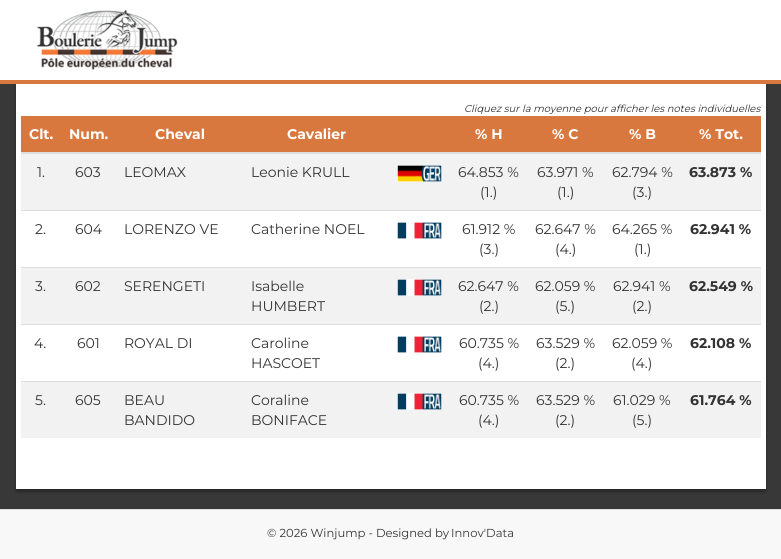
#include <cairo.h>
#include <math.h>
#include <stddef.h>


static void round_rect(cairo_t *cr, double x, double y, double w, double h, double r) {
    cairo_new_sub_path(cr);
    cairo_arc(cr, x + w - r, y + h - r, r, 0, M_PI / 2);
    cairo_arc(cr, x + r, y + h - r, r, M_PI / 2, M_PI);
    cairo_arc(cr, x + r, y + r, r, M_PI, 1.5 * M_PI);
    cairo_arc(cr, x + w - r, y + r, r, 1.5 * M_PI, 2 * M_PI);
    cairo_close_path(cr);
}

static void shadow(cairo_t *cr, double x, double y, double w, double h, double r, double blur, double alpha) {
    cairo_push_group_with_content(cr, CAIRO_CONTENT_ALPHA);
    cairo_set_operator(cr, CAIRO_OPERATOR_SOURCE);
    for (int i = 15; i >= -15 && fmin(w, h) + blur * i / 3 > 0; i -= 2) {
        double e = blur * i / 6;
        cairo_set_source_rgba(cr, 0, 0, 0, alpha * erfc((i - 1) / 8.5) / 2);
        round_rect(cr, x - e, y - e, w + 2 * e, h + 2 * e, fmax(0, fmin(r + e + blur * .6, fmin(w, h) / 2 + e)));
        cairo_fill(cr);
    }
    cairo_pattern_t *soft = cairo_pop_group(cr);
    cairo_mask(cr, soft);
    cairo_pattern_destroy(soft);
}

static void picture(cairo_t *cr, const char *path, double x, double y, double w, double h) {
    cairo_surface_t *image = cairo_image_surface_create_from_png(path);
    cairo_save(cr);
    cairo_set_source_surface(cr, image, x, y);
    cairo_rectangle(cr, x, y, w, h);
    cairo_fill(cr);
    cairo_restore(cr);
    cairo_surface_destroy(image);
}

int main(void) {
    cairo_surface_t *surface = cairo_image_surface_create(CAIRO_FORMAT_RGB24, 781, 559);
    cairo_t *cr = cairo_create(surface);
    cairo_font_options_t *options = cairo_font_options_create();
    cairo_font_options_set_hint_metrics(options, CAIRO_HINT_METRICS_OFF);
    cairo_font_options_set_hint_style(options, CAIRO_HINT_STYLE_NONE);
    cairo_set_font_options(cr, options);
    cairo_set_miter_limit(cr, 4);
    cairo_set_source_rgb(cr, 0.224, 0.22, 0.22);
    cairo_paint(cr);
    cairo_set_source_rgb(cr, 0, 0, 0);
    shadow(cr, 16, -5, 750, 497, 0, 1.5, 0.3);
    cairo_set_source_rgb(cr, 1, 1, 1);
    cairo_rectangle(cr, 0, 0, 781, 80);
    cairo_fill(cr);
    cairo_set_source_rgb(cr, 0.851, 0.471, 0.243);
    cairo_rectangle(cr, 0, 80, 781, 4);
    cairo_fill(cr);
    picture(cr, "img1.png", 36, 10, 142, 60);
    cairo_set_source_rgb(cr, 1, 1, 1);
    cairo_rectangle(cr, 16, 84, 750, 405);
    cairo_fill(cr);
    cairo_select_font_face(cr, "Montserrat", CAIRO_FONT_SLANT_ITALIC, CAIRO_FONT_WEIGHT_NORMAL);
    cairo_set_font_size(cr, 10);
    cairo_set_source_rgb(cr, 0.2, 0.2, 0.2);
    cairo_move_to(cr, 464, 112);
    cairo_show_text(cr, "Cliquez sur la moyenne pour afficher les notes individuelles");
    cairo_set_source_rgb(cr, 0.851, 0.471, 0.243);
    cairo_rectangle(cr, 21, 116, 740, 36);
    cairo_fill(cr);
    cairo_select_font_face(cr, "Montserrat", CAIRO_FONT_SLANT_NORMAL, CAIRO_FONT_WEIGHT_BOLD);
    cairo_set_font_size(cr, 14);
    cairo_set_source_rgb(cr, 1, 1, 1);
    cairo_move_to(cr, 29, 139);
    cairo_show_text(cr, "Clt.");
    cairo_move_to(cr, 69, 139);
    cairo_show_text(cr, "Num.");
    cairo_move_to(cr, 155, 139);
    cairo_show_text(cr, "Cheval");
    cairo_move_to(cr, 287, 139);
    cairo_show_text(cr, "Cavalier");
    cairo_move_to(cr, 475, 139);
    cairo_show_text(cr, "% H");
    cairo_move_to(cr, 552, 139);
    cairo_show_text(cr, "% C");
    cairo_move_to(cr, 629, 139);
    cairo_show_text(cr, "% B");
    cairo_set_source_rgb(cr, 0.867, 0.867, 0.867);
    cairo_rectangle(cr, 21, 152, 740, 2);
    cairo_fill(cr);
    cairo_set_source_rgb(cr, 1, 1, 1);
    cairo_move_to(cr, 699, 139);
    cairo_show_text(cr, "% Tot.");
    cairo_set_source_rgb(cr, 0.949, 0.949, 0.949);
    cairo_rectangle(cr, 21, 154, 740, 56);
    cairo_fill(cr);
    cairo_select_font_face(cr, "Montserrat", CAIRO_FONT_SLANT_NORMAL, CAIRO_FONT_WEIGHT_NORMAL);
    cairo_set_source_rgb(cr, 0.2, 0.2, 0.2);
    cairo_move_to(cr, 37, 177);
    cairo_show_text(cr, "1.");
    cairo_move_to(cr, 75, 177);
    cairo_show_text(cr, "603");
    cairo_move_to(cr, 124, 177);
    cairo_show_text(cr, "LEOMAX");
    cairo_move_to(cr, 251, 177);
    cairo_show_text(cr, "Leonie KRULL");
    picture(cr, "img2.png", 397, 165, 45, 17);
    cairo_move_to(cr, 458, 177);
    cairo_show_text(cr, "64.853 %");
    cairo_move_to(cr, 480, 197);
    cairo_show_text(cr, "(1.)");
    cairo_move_to(cr, 537, 177);
    cairo_show_text(cr, "63.971 %");
    cairo_move_to(cr, 557, 197);
    cairo_show_text(cr, "(1.)");
    cairo_move_to(cr, 612, 177);
    cairo_show_text(cr, "62.794 %");
    cairo_move_to(cr, 632, 197);
    cairo_show_text(cr, "(3.)");
    cairo_select_font_face(cr, "Montserrat", CAIRO_FONT_SLANT_NORMAL, CAIRO_FONT_WEIGHT_BOLD);
    cairo_move_to(cr, 689, 177);
    cairo_show_text(cr, "63.873 %");
    cairo_select_font_face(cr, "Montserrat", CAIRO_FONT_SLANT_NORMAL, CAIRO_FONT_WEIGHT_NORMAL);
    cairo_move_to(cr, 35, 234);
    cairo_show_text(cr, "2.");
    cairo_move_to(cr, 75, 234);
    cairo_show_text(cr, "604");
    cairo_move_to(cr, 124, 234);
    cairo_show_text(cr, "LORENZO VE");
    cairo_move_to(cr, 251, 234);
    cairo_show_text(cr, "Catherine NOEL");
    picture(cr, "img3.png", 397, 222, 45, 17);
    cairo_move_to(cr, 462, 234);
    cairo_show_text(cr, "61.912 %");
    cairo_move_to(cr, 479, 254);
    cairo_show_text(cr, "(3.)");
    cairo_move_to(cr, 535, 234);
    cairo_show_text(cr, "62.647 %");
    cairo_move_to(cr, 555, 254);
    cairo_show_text(cr, "(4.)");
    cairo_move_to(cr, 612, 234);
    cairo_show_text(cr, "64.265 %");
    cairo_move_to(cr, 634, 254);
    cairo_show_text(cr, "(1.)");
    cairo_set_source_rgb(cr, 0.867, 0.867, 0.867);
    cairo_rectangle(cr, 21, 210, 740, 1);
    cairo_fill(cr);
    cairo_select_font_face(cr, "Montserrat", CAIRO_FONT_SLANT_NORMAL, CAIRO_FONT_WEIGHT_BOLD);
    cairo_set_source_rgb(cr, 0.2, 0.2, 0.2);
    cairo_move_to(cr, 690, 234);
    cairo_show_text(cr, "62.941 %");
    cairo_set_source_rgb(cr, 0.949, 0.949, 0.949);
    cairo_rectangle(cr, 21, 268, 740, 56);
    cairo_fill(cr);
    cairo_select_font_face(cr, "Montserrat", CAIRO_FONT_SLANT_NORMAL, CAIRO_FONT_WEIGHT_NORMAL);
    cairo_set_source_rgb(cr, 0.2, 0.2, 0.2);
    cairo_move_to(cr, 35, 291);
    cairo_show_text(cr, "3.");
    cairo_move_to(cr, 75, 291);
    cairo_show_text(cr, "602");
    cairo_move_to(cr, 124, 291);
    cairo_show_text(cr, "SERENGETI");
    cairo_move_to(cr, 251, 291);
    cairo_show_text(cr, "Isabelle");
    cairo_move_to(cr, 251, 311);
    cairo_show_text(cr, "HUMBERT");
    picture(cr, "img3.png", 397, 279, 45, 17);
    cairo_move_to(cr, 458, 291);
    cairo_show_text(cr, "62.647 %");
    cairo_move_to(cr, 479, 311);
    cairo_show_text(cr, "(2.)");
    cairo_move_to(cr, 535, 291);
    cairo_show_text(cr, "62.059 %");
    cairo_move_to(cr, 555, 311);
    cairo_show_text(cr, "(5.)");
    cairo_move_to(cr, 613, 291);
    cairo_show_text(cr, "62.941 %");
    cairo_move_to(cr, 632, 311);
    cairo_show_text(cr, "(2.)");
    cairo_set_source_rgb(cr, 0.867, 0.867, 0.867);
    cairo_rectangle(cr, 21, 267, 740, 1);
    cairo_fill(cr);
    cairo_select_font_face(cr, "Montserrat", CAIRO_FONT_SLANT_NORMAL, CAIRO_FONT_WEIGHT_BOLD);
    cairo_set_source_rgb(cr, 0.2, 0.2, 0.2);
    cairo_move_to(cr, 689, 291);
    cairo_show_text(cr, "62.549 %");
    cairo_select_font_face(cr, "Montserrat", CAIRO_FONT_SLANT_NORMAL, CAIRO_FONT_WEIGHT_NORMAL);
    cairo_move_to(cr, 34, 348);
    cairo_show_text(cr, "4.");
    cairo_move_to(cr, 77, 348);
    cairo_show_text(cr, "601");
    cairo_move_to(cr, 124, 348);
    cairo_show_text(cr, "ROYAL DI");
    cairo_move_to(cr, 251, 348);
    cairo_show_text(cr, "Caroline");
    cairo_move_to(cr, 251, 368);
    cairo_show_text(cr, "HASCOET");
    picture(cr, "img3.png", 397, 336, 45, 17);
    cairo_move_to(cr, 459, 348);
    cairo_show_text(cr, "60.735 %");
    cairo_move_to(cr, 478, 368);
    cairo_show_text(cr, "(4.)");
    cairo_move_to(cr, 536, 348);
    cairo_show_text(cr, "63.529 %");
    cairo_move_to(cr, 555, 368);
    cairo_show_text(cr, "(2.)");
    cairo_move_to(cr, 612, 348);
    cairo_show_text(cr, "62.059 %");
    cairo_move_to(cr, 631, 368);
    cairo_show_text(cr, "(4.)");
    cairo_set_source_rgb(cr, 0.867, 0.867, 0.867);
    cairo_rectangle(cr, 21, 324, 740, 1);
    cairo_fill(cr);
    cairo_select_font_face(cr, "Montserrat", CAIRO_FONT_SLANT_NORMAL, CAIRO_FONT_WEIGHT_BOLD);
    cairo_set_source_rgb(cr, 0.2, 0.2, 0.2);
    cairo_move_to(cr, 690, 348);
    cairo_show_text(cr, "62.108 %");
    cairo_set_source_rgb(cr, 0.949, 0.949, 0.949);
    cairo_rectangle(cr, 21, 382, 740, 56);
    cairo_fill(cr);
    cairo_select_font_face(cr, "Montserrat", CAIRO_FONT_SLANT_NORMAL, CAIRO_FONT_WEIGHT_NORMAL);
    cairo_set_source_rgb(cr, 0.2, 0.2, 0.2);
    cairo_move_to(cr, 35, 405);
    cairo_show_text(cr, "5.");
    cairo_move_to(cr, 75, 405);
    cairo_show_text(cr, "605");
    cairo_move_to(cr, 124, 405);
    cairo_show_text(cr, "BEAU");
    cairo_move_to(cr, 124, 425);
    cairo_show_text(cr, "BANDIDO");
    cairo_move_to(cr, 251, 405);
    cairo_show_text(cr, "Coraline");
    cairo_move_to(cr, 251, 425);
    cairo_show_text(cr, "BONIFACE");
    picture(cr, "img3.png", 397, 393, 45, 17);
    cairo_move_to(cr, 459, 405);
    cairo_show_text(cr, "60.735 %");
    cairo_move_to(cr, 478, 425);
    cairo_show_text(cr, "(4.)");
    cairo_move_to(cr, 536, 405);
    cairo_show_text(cr, "63.529 %");
    cairo_move_to(cr, 555, 425);
    cairo_show_text(cr, "(2.)");
    cairo_move_to(cr, 613, 405);
    cairo_show_text(cr, "61.029 %");
    cairo_move_to(cr, 632, 425);
    cairo_show_text(cr, "(5.)");
    cairo_set_source_rgb(cr, 0.867, 0.867, 0.867);
    cairo_rectangle(cr, 21, 381, 740, 1);
    cairo_fill(cr);
    cairo_select_font_face(cr, "Montserrat", CAIRO_FONT_SLANT_NORMAL, CAIRO_FONT_WEIGHT_BOLD);
    cairo_set_source_rgb(cr, 0.2, 0.2, 0.2);
    cairo_move_to(cr, 690, 405);
    cairo_show_text(cr, "61.764 %");
    cairo_set_source_rgb(cr, 0.969, 0.969, 0.969);
    cairo_rectangle(cr, 0, 510, 781, 49);
    cairo_fill(cr);
    cairo_set_source_rgb(cr, 0.875, 0.875, 0.875);
    cairo_rectangle(cr, 0, 509, 781, 1);
    cairo_fill(cr);
    cairo_select_font_face(cr, "Montserrat", CAIRO_FONT_SLANT_NORMAL, CAIRO_FONT_WEIGHT_NORMAL);
    cairo_set_font_size(cr, 11.6);
    cairo_set_source_rgb(cr, 0.2, 0.2, 0.2);
    cairo_move_to(cr, 267, 537);
    cairo_show_text(cr, "© 2026 Winjump - Designed by");
    cairo_set_source_rgb(cr, 0.224, 0.22, 0.22);
    cairo_move_to(cr, 451, 537);
    cairo_show_text(cr, "Innov'Data");
    cairo_surface_write_to_png(surface, "page.png");
    cairo_font_options_destroy(options);
    cairo_destroy(cr);
    cairo_surface_destroy(surface);
    return 0;
}
